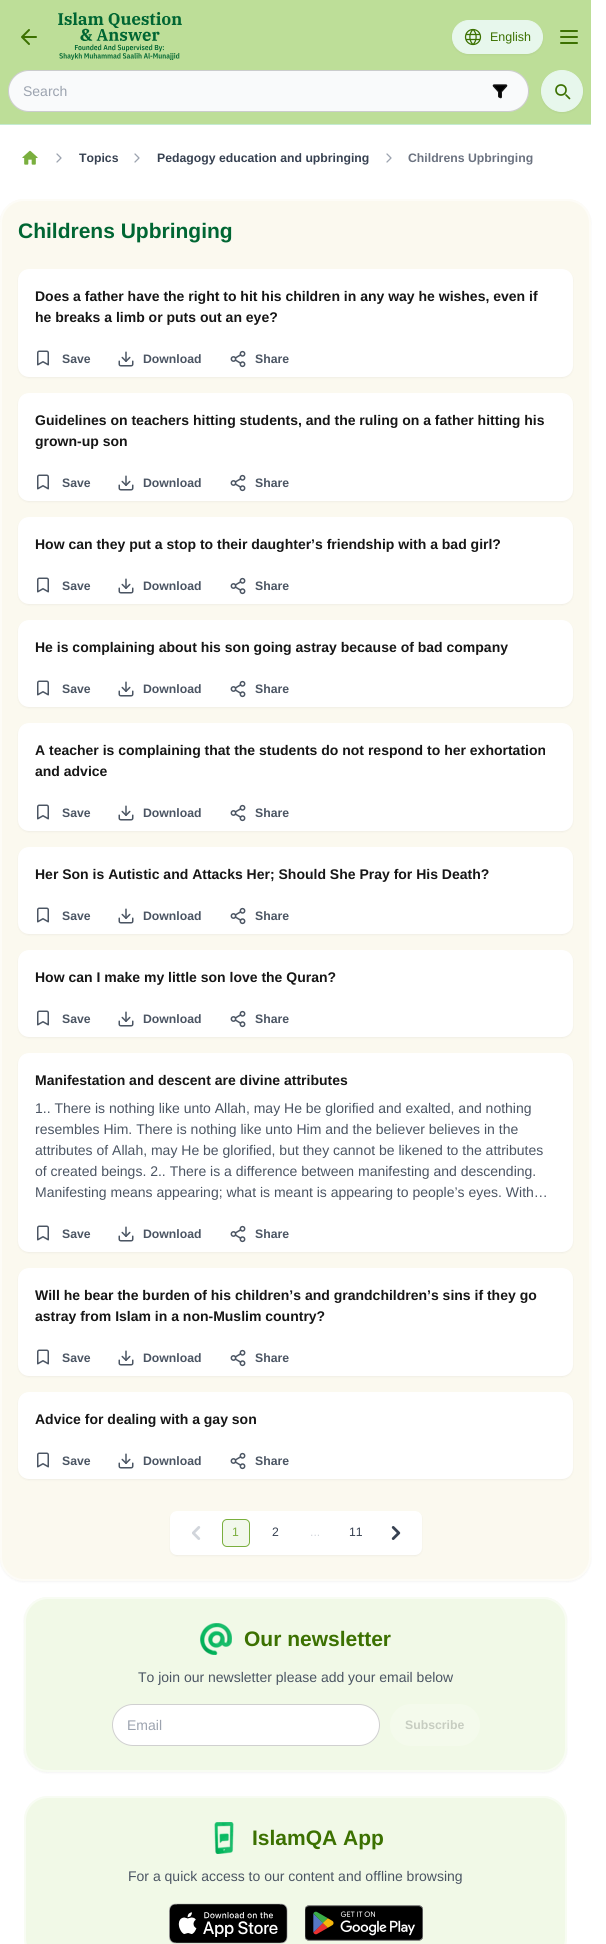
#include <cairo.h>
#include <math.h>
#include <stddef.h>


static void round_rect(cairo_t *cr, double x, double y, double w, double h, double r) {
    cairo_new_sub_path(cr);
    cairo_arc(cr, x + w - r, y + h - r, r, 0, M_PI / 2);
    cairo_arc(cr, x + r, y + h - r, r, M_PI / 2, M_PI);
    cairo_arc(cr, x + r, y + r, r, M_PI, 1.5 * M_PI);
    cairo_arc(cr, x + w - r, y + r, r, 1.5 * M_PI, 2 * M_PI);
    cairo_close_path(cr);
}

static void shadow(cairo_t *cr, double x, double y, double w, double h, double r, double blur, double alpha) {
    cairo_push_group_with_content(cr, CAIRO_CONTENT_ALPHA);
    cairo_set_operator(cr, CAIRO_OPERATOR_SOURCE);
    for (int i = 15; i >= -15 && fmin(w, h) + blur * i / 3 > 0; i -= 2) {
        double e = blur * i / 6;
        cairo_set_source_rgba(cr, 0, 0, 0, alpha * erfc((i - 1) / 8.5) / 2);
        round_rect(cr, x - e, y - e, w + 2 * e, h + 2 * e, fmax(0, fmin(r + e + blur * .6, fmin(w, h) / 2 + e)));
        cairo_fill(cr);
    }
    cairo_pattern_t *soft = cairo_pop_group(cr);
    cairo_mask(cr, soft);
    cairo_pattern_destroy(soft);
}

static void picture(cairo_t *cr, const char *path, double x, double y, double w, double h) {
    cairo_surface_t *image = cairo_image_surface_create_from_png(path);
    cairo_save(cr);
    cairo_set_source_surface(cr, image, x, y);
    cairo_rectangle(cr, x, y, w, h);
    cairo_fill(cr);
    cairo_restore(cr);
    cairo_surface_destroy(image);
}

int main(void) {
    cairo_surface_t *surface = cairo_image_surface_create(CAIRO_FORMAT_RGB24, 606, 1944);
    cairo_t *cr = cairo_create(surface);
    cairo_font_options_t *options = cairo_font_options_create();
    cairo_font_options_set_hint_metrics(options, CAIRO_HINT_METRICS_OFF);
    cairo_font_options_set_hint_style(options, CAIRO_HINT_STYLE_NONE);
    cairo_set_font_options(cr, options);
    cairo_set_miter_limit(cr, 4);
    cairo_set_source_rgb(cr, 1, 1, 1);
    cairo_paint(cr);
    cairo_set_source_rgb(cr, 0.741, 0.871, 0.596);
    cairo_rectangle(cr, 0, 0, 591, 124);
    cairo_fill(cr);
    cairo_set_source_rgb(cr, 0.769, 0.918, 0.82);
    cairo_rectangle(cr, 0, 124, 591, 1);
    cairo_fill(cr);
    cairo_new_path(cr);
    cairo_move_to(cr, 29, 44);
    cairo_line_to(cr, 22, 37);
    cairo_line_to(cr, 29, 30);
    cairo_move_to(cr, 36, 37);
    cairo_line_to(cr, 22, 37);
    cairo_set_source_rgb(cr, 0.235, 0.443, 0.004);
    cairo_set_line_cap(cr, CAIRO_LINE_CAP_ROUND);
    cairo_set_line_join(cr, CAIRO_LINE_JOIN_ROUND);
    cairo_stroke(cr);
    picture(cr, "img1.png", 58, 12, 124, 48);
    cairo_set_source_rgb(cr, 0, 0, 0);
    shadow(cr, 452, 21, 91, 34, 17, 1, 0.05);
    cairo_set_source_rgb(cr, 0.906, 0.965, 0.925);
    round_rect(cr, 452.5, 20.5, 90, 33, 16.5);
    cairo_fill_preserve(cr);
    cairo_set_line_width(cr, 1);
    cairo_set_line_cap(cr, CAIRO_LINE_CAP_BUTT);
    cairo_set_line_join(cr, CAIRO_LINE_JOIN_MITER);
    cairo_stroke(cr);
    picture(cr, "img2.png", 464, 28, 18, 18);
    cairo_select_font_face(cr, "Liberation Sans", CAIRO_FONT_SLANT_NORMAL, CAIRO_FONT_WEIGHT_NORMAL);
    cairo_set_font_size(cr, 12.5);
    cairo_set_source_rgb(cr, 0.235, 0.443, 0.004);
    cairo_move_to(cr, 490, 41);
    cairo_show_text(cr, "English");
    picture(cr, "img3.png", 560, 30, 18, 14);
    cairo_set_source_rgb(cr, 0.976, 0.98, 0.984);
    round_rect(cr, 8, 70, 521, 42, 21);
    cairo_fill(cr);
    round_rect(cr, 8.5, 70.5, 520, 41, 20.5);
    cairo_set_source_rgba(cr, 0.086, 0.086, 0.086, 0.2);
    cairo_stroke(cr);
    cairo_set_font_size(cr, 14);
    cairo_set_source_rgb(cr, 0.612, 0.639, 0.686);
    cairo_move_to(cr, 23, 96);
    cairo_show_text(cr, "Search");
    picture(cr, "img4.png", 492, 84, 16, 15);
    cairo_set_source_rgb(cr, 0, 0, 0);
    shadow(cr, 541, 71, 42, 42, 21, 1, 0.05);
    cairo_set_source_rgb(cr, 0.906, 0.965, 0.925);
    cairo_arc(cr, 562, 91, 20.5, 0, 2 * M_PI);
    cairo_fill_preserve(cr);
    cairo_stroke(cr);
    cairo_new_path(cr);
    cairo_move_to(cr, 569.5, 98.5);
    cairo_line_to(cr, 566, 95);
    cairo_set_source_rgb(cr, 0.235, 0.443, 0.004);
    cairo_set_line_width(cr, 1.7);
    cairo_set_line_cap(cr, CAIRO_LINE_CAP_ROUND);
    cairo_set_line_join(cr, CAIRO_LINE_JOIN_ROUND);
    cairo_stroke(cr);
    cairo_arc(cr, 561, 90, 5, 0, 2 * M_PI);
    cairo_set_line_cap(cr, CAIRO_LINE_CAP_BUTT);
    cairo_set_line_join(cr, CAIRO_LINE_JOIN_MITER);
    cairo_stroke(cr);
    cairo_set_source_rgb(cr, 0, 0, 0);
    shadow(cr, 0, 200, 591, 1382, 24, 1, 0.05);
    cairo_set_source_rgb(cr, 0.984, 0.973, 0.937);
    round_rect(cr, 0, 199, 591, 1382, 24);
    cairo_fill(cr);
    round_rect(cr, 1, 200, 589, 1380, 23);
    cairo_set_source_rgba(cr, 1, 1, 1, 0.5);
    cairo_set_line_width(cr, 2);
    cairo_stroke(cr);
    picture(cr, "img5.png", 22, 150, 16, 15);
    cairo_new_path(cr);
    cairo_move_to(cr, 57, 162);
    cairo_line_to(cr, 61, 158);
    cairo_line_to(cr, 57, 154);
    cairo_set_source_rgb(cr, 0.612, 0.639, 0.686);
    cairo_set_line_width(cr, 1.3);
    cairo_set_line_cap(cr, CAIRO_LINE_CAP_ROUND);
    cairo_set_line_join(cr, CAIRO_LINE_JOIN_ROUND);
    cairo_stroke(cr);
    cairo_select_font_face(cr, "Liberation Sans", CAIRO_FONT_SLANT_NORMAL, CAIRO_FONT_WEIGHT_BOLD);
    cairo_set_font_size(cr, 12.25);
    cairo_set_source_rgb(cr, 0.216, 0.255, 0.318);
    cairo_move_to(cr, 79, 162);
    cairo_show_text(cr, "Topics");
    cairo_new_path(cr);
    cairo_move_to(cr, 135, 162);
    cairo_line_to(cr, 139, 158);
    cairo_line_to(cr, 135, 154);
    cairo_set_source_rgb(cr, 0.612, 0.639, 0.686);
    cairo_stroke(cr);
    cairo_set_source_rgb(cr, 0.216, 0.255, 0.318);
    cairo_move_to(cr, 157, 162);
    cairo_show_text(cr, "Pedagogy education and upbringing");
    cairo_new_path(cr);
    cairo_move_to(cr, 387, 162);
    cairo_line_to(cr, 391, 158);
    cairo_line_to(cr, 387, 154);
    cairo_set_source_rgb(cr, 0.612, 0.639, 0.686);
    cairo_stroke(cr);
    cairo_set_source_rgb(cr, 0.42, 0.447, 0.502);
    cairo_move_to(cr, 408, 162);
    cairo_show_text(cr, "Childrens Upbringing");
    cairo_set_font_size(cr, 21);
    cairo_set_source_rgb(cr, 0, 0.4, 0.2);
    cairo_move_to(cr, 18, 238);
    cairo_show_text(cr, "Childrens Upbringing");
    cairo_set_source_rgb(cr, 0, 0, 0);
    shadow(cr, 18, 270, 555, 108, 11, 1, 0.05);
    cairo_set_source_rgb(cr, 1, 1, 1);
    round_rect(cr, 18, 269, 555, 108, 11);
    cairo_fill(cr);
    cairo_set_font_size(cr, 14);
    cairo_set_source_rgb(cr, 0.086, 0.086, 0.086);
    cairo_move_to(cr, 35, 301);
    cairo_show_text(cr, "Does a father have the right to hit his children in any way he wishes, even if");
    cairo_move_to(cr, 35, 322);
    cairo_show_text(cr, "he breaks a limb or puts out an eye?");
    picture(cr, "img6.png", 37, 350, 12, 16);
    cairo_set_font_size(cr, 12.25);
    cairo_set_source_rgb(cr, 0.294, 0.333, 0.388);
    cairo_move_to(cr, 62, 363);
    cairo_show_text(cr, "Save");
    picture(cr, "img7.png", 118, 351, 16, 16);
    cairo_move_to(cr, 143, 363);
    cairo_show_text(cr, "Download");
    picture(cr, "img8.png", 230, 350, 16, 18);
    cairo_move_to(cr, 255, 363);
    cairo_show_text(cr, "Share");
    cairo_set_source_rgb(cr, 0, 0, 0);
    shadow(cr, 18, 394, 555, 108, 11, 1, 0.05);
    cairo_set_source_rgb(cr, 1, 1, 1);
    round_rect(cr, 18, 393, 555, 108, 11);
    cairo_fill(cr);
    cairo_set_font_size(cr, 14);
    cairo_set_source_rgb(cr, 0.086, 0.086, 0.086);
    cairo_move_to(cr, 35, 425);
    cairo_show_text(cr, "Guidelines on teachers hitting students, and the ruling on a father hitting his");
    cairo_move_to(cr, 35, 446);
    cairo_show_text(cr, "grown-up son");
    picture(cr, "img6.png", 37, 474, 12, 16);
    cairo_set_font_size(cr, 12.25);
    cairo_set_source_rgb(cr, 0.294, 0.333, 0.388);
    cairo_move_to(cr, 62, 487);
    cairo_show_text(cr, "Save");
    picture(cr, "img7.png", 118, 475, 16, 16);
    cairo_move_to(cr, 143, 487);
    cairo_show_text(cr, "Download");
    picture(cr, "img8.png", 230, 474, 16, 18);
    cairo_move_to(cr, 255, 487);
    cairo_show_text(cr, "Share");
    cairo_set_source_rgb(cr, 0, 0, 0);
    shadow(cr, 18, 518, 555, 87, 11, 1, 0.05);
    cairo_set_source_rgb(cr, 1, 1, 1);
    round_rect(cr, 18, 517, 555, 87, 11);
    cairo_fill(cr);
    cairo_set_font_size(cr, 14);
    cairo_set_source_rgb(cr, 0.086, 0.086, 0.086);
    cairo_move_to(cr, 35, 549);
    cairo_show_text(cr, "How can they put a stop to their daughter’s friendship with a bad girl?");
    picture(cr, "img6.png", 37, 577, 12, 16);
    cairo_set_font_size(cr, 12.25);
    cairo_set_source_rgb(cr, 0.294, 0.333, 0.388);
    cairo_move_to(cr, 62, 590);
    cairo_show_text(cr, "Save");
    picture(cr, "img7.png", 118, 578, 16, 16);
    cairo_move_to(cr, 143, 590);
    cairo_show_text(cr, "Download");
    picture(cr, "img8.png", 230, 577, 16, 18);
    cairo_move_to(cr, 255, 590);
    cairo_show_text(cr, "Share");
    cairo_set_source_rgb(cr, 0, 0, 0);
    shadow(cr, 18, 621, 555, 87, 11, 1, 0.05);
    cairo_set_source_rgb(cr, 1, 1, 1);
    round_rect(cr, 18, 620, 555, 87, 11);
    cairo_fill(cr);
    cairo_set_font_size(cr, 14);
    cairo_set_source_rgb(cr, 0.086, 0.086, 0.086);
    cairo_move_to(cr, 35, 652);
    cairo_show_text(cr, "He is complaining about his son going astray because of bad company");
    picture(cr, "img6.png", 37, 680, 12, 16);
    cairo_set_font_size(cr, 12.25);
    cairo_set_source_rgb(cr, 0.294, 0.333, 0.388);
    cairo_move_to(cr, 62, 693);
    cairo_show_text(cr, "Save");
    picture(cr, "img7.png", 118, 681, 16, 16);
    cairo_move_to(cr, 143, 693);
    cairo_show_text(cr, "Download");
    picture(cr, "img8.png", 230, 680, 16, 18);
    cairo_move_to(cr, 255, 693);
    cairo_show_text(cr, "Share");
    cairo_set_source_rgb(cr, 0, 0, 0);
    shadow(cr, 18, 724, 555, 108, 11, 1, 0.05);
    cairo_set_source_rgb(cr, 1, 1, 1);
    round_rect(cr, 18, 723, 555, 108, 11);
    cairo_fill(cr);
    cairo_set_font_size(cr, 14);
    cairo_set_source_rgb(cr, 0.086, 0.086, 0.086);
    cairo_move_to(cr, 35, 755);
    cairo_show_text(cr, "A teacher is complaining that the students do not respond to her exhortation");
    cairo_move_to(cr, 35, 776);
    cairo_show_text(cr, "and advice");
    picture(cr, "img6.png", 37, 804, 12, 16);
    cairo_set_font_size(cr, 12.25);
    cairo_set_source_rgb(cr, 0.294, 0.333, 0.388);
    cairo_move_to(cr, 62, 817);
    cairo_show_text(cr, "Save");
    picture(cr, "img7.png", 118, 805, 16, 16);
    cairo_move_to(cr, 143, 817);
    cairo_show_text(cr, "Download");
    picture(cr, "img8.png", 230, 804, 16, 18);
    cairo_move_to(cr, 255, 817);
    cairo_show_text(cr, "Share");
    cairo_set_source_rgb(cr, 0, 0, 0);
    shadow(cr, 18, 848, 555, 87, 11, 1, 0.05);
    cairo_set_source_rgb(cr, 1, 1, 1);
    round_rect(cr, 18, 847, 555, 87, 11);
    cairo_fill(cr);
    cairo_set_font_size(cr, 14);
    cairo_set_source_rgb(cr, 0.086, 0.086, 0.086);
    cairo_move_to(cr, 35, 879);
    cairo_show_text(cr, "Her Son is Autistic and Attacks Her; Should She Pray for His Death?");
    picture(cr, "img6.png", 37, 907, 12, 16);
    cairo_set_font_size(cr, 12.25);
    cairo_set_source_rgb(cr, 0.294, 0.333, 0.388);
    cairo_move_to(cr, 62, 920);
    cairo_show_text(cr, "Save");
    picture(cr, "img7.png", 118, 908, 16, 16);
    cairo_move_to(cr, 143, 920);
    cairo_show_text(cr, "Download");
    picture(cr, "img8.png", 230, 907, 16, 18);
    cairo_move_to(cr, 255, 920);
    cairo_show_text(cr, "Share");
    cairo_set_source_rgb(cr, 0, 0, 0);
    shadow(cr, 18, 951, 555, 87, 11, 1, 0.05);
    cairo_set_source_rgb(cr, 1, 1, 1);
    round_rect(cr, 18, 950, 555, 87, 11);
    cairo_fill(cr);
    cairo_set_font_size(cr, 14);
    cairo_set_source_rgb(cr, 0.086, 0.086, 0.086);
    cairo_move_to(cr, 35, 982);
    cairo_show_text(cr, "How can I make my little son love the Quran?");
    picture(cr, "img6.png", 37, 1010, 12, 16);
    cairo_set_font_size(cr, 12.25);
    cairo_set_source_rgb(cr, 0.294, 0.333, 0.388);
    cairo_move_to(cr, 62, 1023);
    cairo_show_text(cr, "Save");
    picture(cr, "img7.png", 118, 1011, 16, 16);
    cairo_move_to(cr, 143, 1023);
    cairo_show_text(cr, "Download");
    picture(cr, "img8.png", 230, 1010, 16, 18);
    cairo_move_to(cr, 255, 1023);
    cairo_show_text(cr, "Share");
    cairo_set_source_rgb(cr, 0, 0, 0);
    shadow(cr, 18, 1054, 555, 199, 11, 1, 0.05);
    cairo_set_source_rgb(cr, 1, 1, 1);
    round_rect(cr, 18, 1053, 555, 199, 11);
    cairo_fill(cr);
    cairo_set_font_size(cr, 14);
    cairo_set_source_rgb(cr, 0.086, 0.086, 0.086);
    cairo_move_to(cr, 35, 1085);
    cairo_show_text(cr, "Manifestation and descent are divine attributes");
    cairo_select_font_face(cr, "Liberation Sans", CAIRO_FONT_SLANT_NORMAL, CAIRO_FONT_WEIGHT_NORMAL);
    cairo_set_source_rgb(cr, 0.294, 0.333, 0.388);
    cairo_move_to(cr, 35, 1113);
    cairo_show_text(cr, "1.. There is nothing like unto Allah, may He be glorified and exalted, and nothing");
    cairo_move_to(cr, 35, 1134);
    cairo_show_text(cr, "resembles Him. There is nothing like unto Him and the believer believes in the");
    cairo_move_to(cr, 35, 1155);
    cairo_show_text(cr, "attributes of Allah, may He be glorified, but they cannot be likened to the attributes");
    cairo_move_to(cr, 35, 1176);
    cairo_show_text(cr, "of created beings. 2.. There is a difference between manifesting and descending.");
    cairo_move_to(cr, 35, 1197);
    cairo_show_text(cr, "Manifesting means appearing; what is meant is appearing to people’s eyes. With…");
    picture(cr, "img6.png", 37, 1225, 12, 16);
    cairo_select_font_face(cr, "Liberation Sans", CAIRO_FONT_SLANT_NORMAL, CAIRO_FONT_WEIGHT_BOLD);
    cairo_set_font_size(cr, 12.25);
    cairo_move_to(cr, 62, 1238);
    cairo_show_text(cr, "Save");
    picture(cr, "img7.png", 118, 1226, 16, 16);
    cairo_move_to(cr, 143, 1238);
    cairo_show_text(cr, "Download");
    picture(cr, "img8.png", 230, 1225, 16, 18);
    cairo_move_to(cr, 255, 1238);
    cairo_show_text(cr, "Share");
    cairo_set_source_rgb(cr, 0, 0, 0);
    shadow(cr, 18, 1269, 555, 108, 11, 1, 0.05);
    cairo_set_source_rgb(cr, 1, 1, 1);
    round_rect(cr, 18, 1268, 555, 108, 11);
    cairo_fill(cr);
    cairo_set_font_size(cr, 14);
    cairo_set_source_rgb(cr, 0.086, 0.086, 0.086);
    cairo_move_to(cr, 35, 1300);
    cairo_show_text(cr, "Will he bear the burden of his children’s and grandchildren’s sins if they go");
    cairo_move_to(cr, 35, 1321);
    cairo_show_text(cr, "astray from Islam in a non-Muslim country?");
    picture(cr, "img6.png", 37, 1349, 12, 16);
    cairo_set_font_size(cr, 12.25);
    cairo_set_source_rgb(cr, 0.294, 0.333, 0.388);
    cairo_move_to(cr, 62, 1362);
    cairo_show_text(cr, "Save");
    picture(cr, "img7.png", 118, 1350, 16, 16);
    cairo_move_to(cr, 143, 1362);
    cairo_show_text(cr, "Download");
    picture(cr, "img8.png", 230, 1349, 16, 18);
    cairo_move_to(cr, 255, 1362);
    cairo_show_text(cr, "Share");
    cairo_set_source_rgb(cr, 0, 0, 0);
    shadow(cr, 18, 1393, 555, 87, 11, 1, 0.05);
    cairo_set_source_rgb(cr, 1, 1, 1);
    round_rect(cr, 18, 1392, 555, 87, 11);
    cairo_fill(cr);
    cairo_set_font_size(cr, 14);
    cairo_set_source_rgb(cr, 0.086, 0.086, 0.086);
    cairo_move_to(cr, 35, 1424);
    cairo_show_text(cr, "Advice for dealing with a gay son");
    picture(cr, "img6.png", 37, 1452, 12, 16);
    cairo_set_font_size(cr, 12.25);
    cairo_set_source_rgb(cr, 0.294, 0.333, 0.388);
    cairo_move_to(cr, 62, 1465);
    cairo_show_text(cr, "Save");
    picture(cr, "img7.png", 118, 1453, 16, 16);
    cairo_move_to(cr, 143, 1465);
    cairo_show_text(cr, "Download");
    picture(cr, "img8.png", 230, 1452, 16, 18);
    cairo_move_to(cr, 255, 1465);
    cairo_show_text(cr, "Share");
    cairo_set_source_rgb(cr, 0, 0, 0);
    shadow(cr, 170, 1512, 252, 44, 7, 1, 0.05);
    cairo_set_source_rgb(cr, 1, 1, 1);
    round_rect(cr, 170, 1511, 252, 44, 7);
    cairo_fill(cr);
    picture(cr, "img9.png", 192, 1526, 9, 14);
    cairo_set_source_rgb(cr, 0.949, 0.969, 0.925);
    round_rect(cr, 222.5, 1519.5, 27, 27, 4.5);
    cairo_fill_preserve(cr);
    cairo_set_source_rgb(cr, 0.478, 0.686, 0.243);
    cairo_set_line_width(cr, 1);
    cairo_set_line_cap(cr, CAIRO_LINE_CAP_BUTT);
    cairo_set_line_join(cr, CAIRO_LINE_JOIN_MITER);
    cairo_stroke(cr);
    cairo_select_font_face(cr, "Liberation Sans", CAIRO_FONT_SLANT_NORMAL, CAIRO_FONT_WEIGHT_NORMAL);
    cairo_move_to(cr, 232, 1536);
    cairo_show_text(cr, "1");
    cairo_set_source_rgb(cr, 0.216, 0.255, 0.318);
    cairo_move_to(cr, 272, 1536);
    cairo_show_text(cr, "2");
    cairo_set_source_rgb(cr, 0.82, 0.835, 0.859);
    cairo_move_to(cr, 310, 1536);
    cairo_show_text(cr, "...");
    cairo_set_source_rgb(cr, 0.216, 0.255, 0.318);
    cairo_move_to(cr, 349, 1536);
    cairo_show_text(cr, "11");
    picture(cr, "img10.png", 391, 1526, 10, 14);
    cairo_set_source_rgb(cr, 0, 0, 0);
    shadow(cr, 24, 1598, 543, 175, 24, 1, 0.05);
    cairo_set_source_rgb(cr, 0.945, 0.976, 0.906);
    round_rect(cr, 24, 1597, 543, 175, 24);
    cairo_fill(cr);
    round_rect(cr, 25, 1598, 541, 173, 23);
    cairo_set_source_rgba(cr, 1, 1, 1, 0.5);
    cairo_set_line_width(cr, 2);
    cairo_stroke(cr);
    picture(cr, "img11.png", 200, 1623, 32, 32);
    cairo_select_font_face(cr, "Liberation Sans", CAIRO_FONT_SLANT_NORMAL, CAIRO_FONT_WEIGHT_BOLD);
    cairo_set_font_size(cr, 21);
    cairo_set_source_rgb(cr, 0.235, 0.443, 0.004);
    cairo_move_to(cr, 244, 1646);
    cairo_show_text(cr, "Our newsletter");
    cairo_select_font_face(cr, "Liberation Sans", CAIRO_FONT_SLANT_NORMAL, CAIRO_FONT_WEIGHT_NORMAL);
    cairo_set_font_size(cr, 14);
    cairo_set_source_rgb(cr, 0.294, 0.333, 0.388);
    cairo_move_to(cr, 138, 1682);
    cairo_show_text(cr, "To join our newsletter please add your email below");
    cairo_set_source_rgb(cr, 1, 1, 1);
    round_rect(cr, 112, 1704, 268, 42, 21);
    cairo_fill(cr);
    round_rect(cr, 112.5, 1704.5, 267, 41, 20.5);
    cairo_set_source_rgba(cr, 0.086, 0.086, 0.086, 0.2);
    cairo_set_line_width(cr, 1);
    cairo_stroke(cr);
    cairo_set_source_rgb(cr, 0.612, 0.639, 0.686);
    cairo_move_to(cr, 127, 1730);
    cairo_show_text(cr, "Email");
    cairo_set_source_rgba(cr, 1, 1, 1, 0.2);
    round_rect(cr, 390, 1704, 90, 42, 21);
    cairo_fill(cr);
    cairo_select_font_face(cr, "Liberation Sans", CAIRO_FONT_SLANT_NORMAL, CAIRO_FONT_WEIGHT_BOLD);
    cairo_set_font_size(cr, 12.25);
    cairo_set_source_rgb(cr, 0.78, 0.804, 0.757);
    cairo_move_to(cr, 405, 1729);
    cairo_show_text(cr, "Subscribe");
    cairo_set_source_rgb(cr, 0.945, 0.976, 0.906);
    round_rect(cr, 24, 1796, 543, 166, 24);
    cairo_fill(cr);
    round_rect(cr, 25, 1797, 541, 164, 23);
    cairo_set_source_rgba(cr, 1, 1, 1, 0.5);
    cairo_set_line_width(cr, 2);
    cairo_stroke(cr);
    picture(cr, "img12.png", 214, 1822, 20, 32);
    cairo_set_font_size(cr, 21);
    cairo_set_source_rgb(cr, 0.235, 0.443, 0.004);
    cairo_move_to(cr, 252, 1845);
    cairo_show_text(cr, "IslamQA App");
    cairo_select_font_face(cr, "Liberation Sans", CAIRO_FONT_SLANT_NORMAL, CAIRO_FONT_WEIGHT_NORMAL);
    cairo_set_font_size(cr, 14);
    cairo_set_source_rgb(cr, 0.294, 0.333, 0.388);
    cairo_move_to(cr, 128, 1881);
    cairo_show_text(cr, "For a quick access to our content and offline browsing");
    picture(cr, "img13.png", 169, 1903, 119, 41);
    picture(cr, "img14.png", 305, 1905, 118, 36);
    cairo_surface_write_to_png(surface, "page.png");
    cairo_font_options_destroy(options);
    cairo_destroy(cr);
    cairo_surface_destroy(surface);
    return 0;
}
